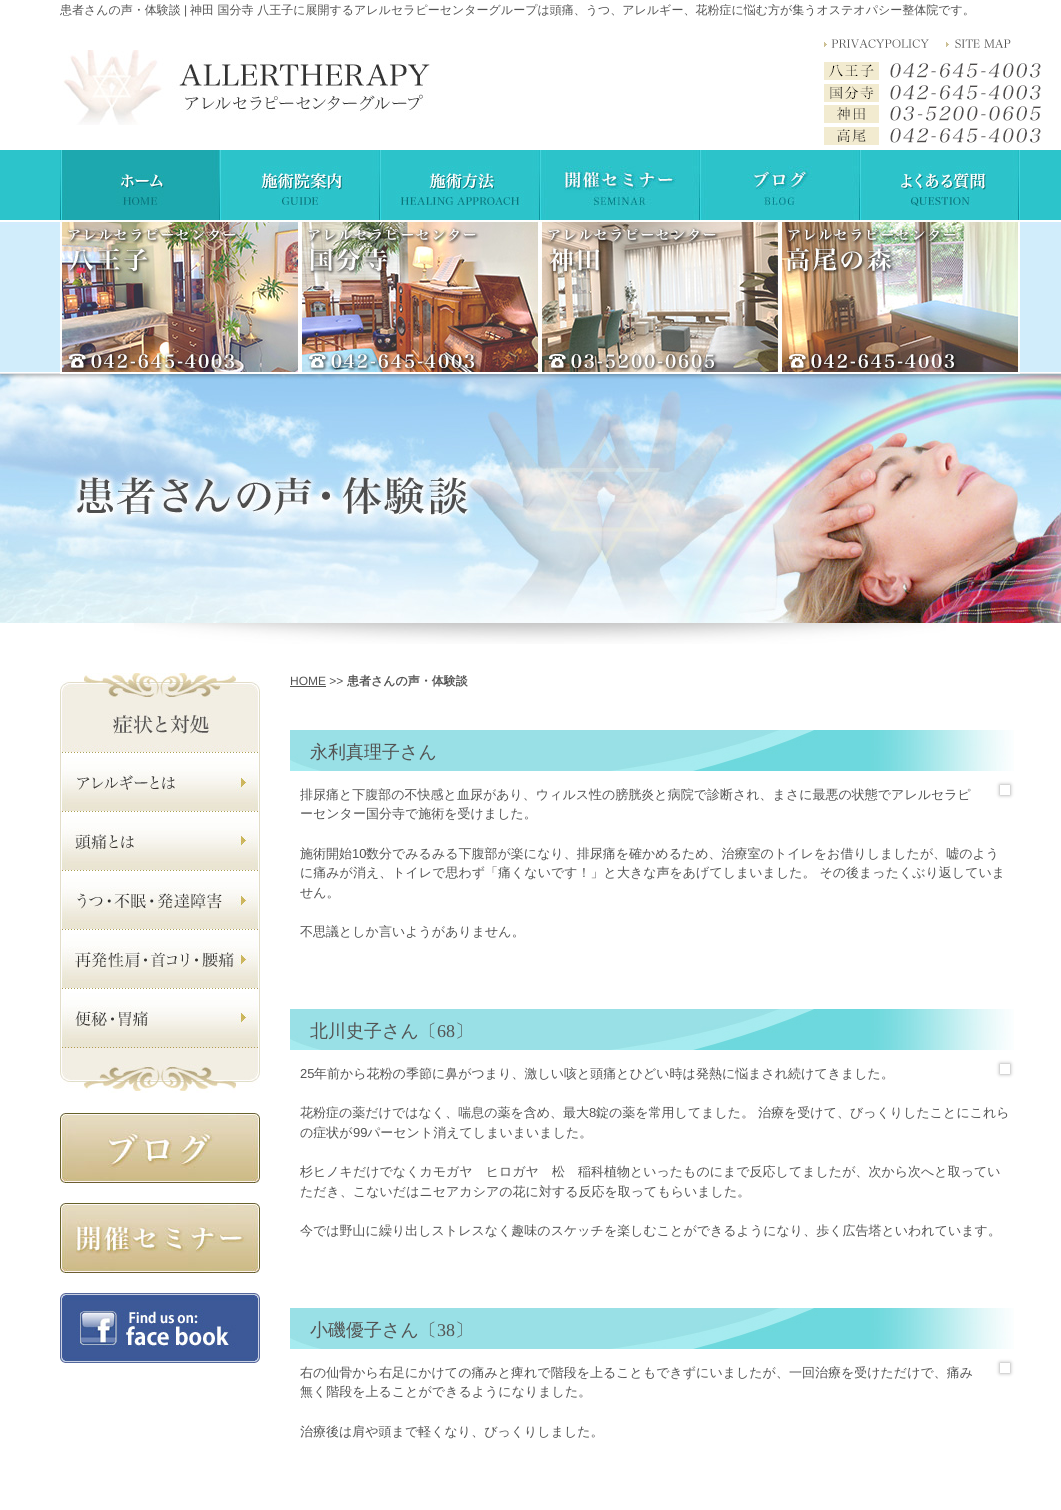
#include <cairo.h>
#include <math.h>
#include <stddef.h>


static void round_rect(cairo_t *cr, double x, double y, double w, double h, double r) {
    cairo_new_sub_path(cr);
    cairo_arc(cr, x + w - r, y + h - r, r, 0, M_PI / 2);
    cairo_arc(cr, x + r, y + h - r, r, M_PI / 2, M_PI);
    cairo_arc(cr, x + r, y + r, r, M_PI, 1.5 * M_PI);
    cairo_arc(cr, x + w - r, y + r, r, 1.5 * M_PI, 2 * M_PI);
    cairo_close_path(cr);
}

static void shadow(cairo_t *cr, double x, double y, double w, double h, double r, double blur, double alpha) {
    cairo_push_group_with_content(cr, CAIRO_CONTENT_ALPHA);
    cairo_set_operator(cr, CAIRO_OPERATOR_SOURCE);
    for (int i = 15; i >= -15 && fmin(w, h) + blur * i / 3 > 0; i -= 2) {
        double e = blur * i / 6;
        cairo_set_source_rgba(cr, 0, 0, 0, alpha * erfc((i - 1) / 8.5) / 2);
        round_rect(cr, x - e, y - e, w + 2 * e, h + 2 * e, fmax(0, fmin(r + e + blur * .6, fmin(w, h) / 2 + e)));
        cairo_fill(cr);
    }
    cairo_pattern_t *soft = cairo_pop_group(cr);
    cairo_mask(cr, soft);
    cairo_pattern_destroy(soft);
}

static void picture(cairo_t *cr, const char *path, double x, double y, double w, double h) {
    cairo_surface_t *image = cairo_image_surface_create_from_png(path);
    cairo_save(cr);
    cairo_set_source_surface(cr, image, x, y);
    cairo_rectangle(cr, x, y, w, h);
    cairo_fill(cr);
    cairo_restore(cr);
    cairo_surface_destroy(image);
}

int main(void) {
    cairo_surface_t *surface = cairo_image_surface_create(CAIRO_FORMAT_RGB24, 1061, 1510);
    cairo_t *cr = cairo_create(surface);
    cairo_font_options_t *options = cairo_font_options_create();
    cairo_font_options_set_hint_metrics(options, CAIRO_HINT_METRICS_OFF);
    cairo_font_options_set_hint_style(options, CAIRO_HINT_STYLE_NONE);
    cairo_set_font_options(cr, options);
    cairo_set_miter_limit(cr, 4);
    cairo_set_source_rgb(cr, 1, 1, 1);
    cairo_paint(cr);
    cairo_select_font_face(cr, "WenQuanYi Zen Hei Medium", CAIRO_FONT_SLANT_NORMAL, CAIRO_FONT_WEIGHT_NORMAL);
    cairo_set_font_size(cr, 12);
    cairo_set_source_rgb(cr, 0.325, 0.325, 0.325);
    cairo_move_to(cr, 60, 14);
    cairo_show_text(cr, "患者さんの声・体験談");
    cairo_select_font_face(cr, "Liberation Sans", CAIRO_FONT_SLANT_NORMAL, CAIRO_FONT_WEIGHT_NORMAL);
    cairo_move_to(cr, 184, 14);
    cairo_show_text(cr, "|");
    cairo_select_font_face(cr, "WenQuanYi Zen Hei Medium", CAIRO_FONT_SLANT_NORMAL, CAIRO_FONT_WEIGHT_NORMAL);
    cairo_move_to(cr, 190, 14);
    cairo_show_text(cr, "神田 国分寺 八王子に展開するアレルセラピーセンターグループは頭痛、うつ、アレルギー、花粉症に悩む方が集うオステオパシー整体院です。");
    picture(cr, "img1.png", 63, 50, 367, 75);
    picture(cr, "img2.png", 824, 39, 105, 9);
    picture(cr, "img3.png", 946, 39, 65, 9);
    picture(cr, "img4.png", 824, 62, 217, 83);
    cairo_set_source_rgb(cr, 0.173, 0.769, 0.796);
    cairo_rectangle(cr, 0, 150, 1061, 70);
    cairo_fill(cr);
    picture(cr, "img5.png", 60, 150, 160, 70);
    picture(cr, "img6.png", 220, 150, 160, 70);
    picture(cr, "img7.png", 380, 150, 160, 70);
    picture(cr, "img8.png", 540, 150, 160, 70);
    picture(cr, "img9.png", 700, 150, 160, 70);
    picture(cr, "img10.png", 860, 150, 160, 70);
    picture(cr, "img11.png", 0, 222, 1061, 152);
    picture(cr, "img12.png", 60, 220, 240, 154);
    picture(cr, "img13.png", 300, 220, 240, 154);
    picture(cr, "img14.png", 540, 220, 240, 154);
    picture(cr, "img15.png", 780, 220, 240, 154);
    picture(cr, "img16.png", 0, 374, 1061, 249);
    picture(cr, "img17.png", 60, 374, 960, 249);
    picture(cr, "img18.png", 134, 623, 812, 21);
    picture(cr, "img19.png", 60, 1048, 200, 45);
    picture(cr, "img20.png", 60, 673, 200, 80);
    picture(cr, "img21.png", 60, 753, 200, 59);
    picture(cr, "img22.png", 60, 812, 200, 59);
    picture(cr, "img23.png", 60, 871, 200, 59);
    picture(cr, "img24.png", 60, 930, 200, 59);
    picture(cr, "img25.png", 60, 989, 200, 59);
    picture(cr, "img26.png", 60, 1113, 200, 70);
    picture(cr, "img27.png", 60, 1203, 200, 70);
    picture(cr, "img28.png", 60, 1293, 200, 70);
    cairo_select_font_face(cr, "Liberation Sans", CAIRO_FONT_SLANT_NORMAL, CAIRO_FONT_WEIGHT_NORMAL);
    cairo_set_source_rgb(cr, 0.325, 0.325, 0.325);
    cairo_move_to(cr, 290, 685);
    cairo_show_text(cr, "HOME >>");
    cairo_rectangle(cr, 290, 686, 36, 1);
    cairo_fill(cr);
    cairo_select_font_face(cr, "WenQuanYi Zen Hei", CAIRO_FONT_SLANT_NORMAL, CAIRO_FONT_WEIGHT_BOLD);
    cairo_move_to(cr, 347, 685);
    cairo_show_text(cr, "患者さんの声・体験談");
    picture(cr, "img29.png", 290, 730, 724, 41);
    cairo_select_font_face(cr, "WenQuanYi Zen Hei Medium", CAIRO_FONT_SLANT_NORMAL, CAIRO_FONT_WEIGHT_NORMAL);
    cairo_set_font_size(cr, 18);
    cairo_move_to(cr, 310, 758);
    cairo_show_text(cr, "永利真理子さん");
    cairo_set_font_size(cr, 13);
    cairo_move_to(cr, 300, 799);
    cairo_show_text(cr, "排尿痛と下腹部の不快感と血尿があり、ウィルス性の膀胱炎と病院で診断され、まさに最悪の状態でアレルセラピ");
    cairo_move_to(cr, 300, 818);
    cairo_show_text(cr, "ーセンター国分寺で施術を受けました。");
    cairo_save(cr);
    cairo_set_fill_rule(cr, CAIRO_FILL_RULE_EVEN_ODD);
    cairo_new_path(cr);
    cairo_move_to(cr, 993, 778);
    cairo_line_to(cr, 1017, 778);
    cairo_line_to(cr, 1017, 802);
    cairo_line_to(cr, 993, 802);
    cairo_close_path(cr);
    cairo_move_to(cr, 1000, 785);
    cairo_line_to(cr, 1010, 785);
    cairo_line_to(cr, 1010, 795);
    cairo_line_to(cr, 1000, 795);
    cairo_close_path(cr);
    cairo_clip(cr);
    cairo_set_source_rgb(cr, 0.6, 0.6, 0.6);
    shadow(cr, 1000, 785, 10, 10, 0, 2, 1);
    cairo_restore(cr);
    cairo_move_to(cr, 300, 858);
    cairo_show_text(cr, "施術開始");
    cairo_select_font_face(cr, "Liberation Sans", CAIRO_FONT_SLANT_NORMAL, CAIRO_FONT_WEIGHT_NORMAL);
    cairo_move_to(cr, 352, 858);
    cairo_show_text(cr, "10");
    cairo_select_font_face(cr, "WenQuanYi Zen Hei Medium", CAIRO_FONT_SLANT_NORMAL, CAIRO_FONT_WEIGHT_NORMAL);
    cairo_move_to(cr, 366, 858);
    cairo_show_text(cr, "数分でみるみる下腹部が楽になり、排尿痛を確かめるため、治療室のトイレをお借りしましたが、嘘のよう");
    cairo_move_to(cr, 300, 877);
    cairo_show_text(cr, "に痛みが消え、トイレで思わず「痛くないです！」と大きな声をあげてしまいました。 その後まったくぶり返していま");
    cairo_move_to(cr, 300, 897);
    cairo_show_text(cr, "せん。");
    cairo_move_to(cr, 300, 936);
    cairo_show_text(cr, "不思議としか言いようがありません。");
    picture(cr, "img29.png", 290, 1009, 724, 41);
    cairo_set_font_size(cr, 18);
    cairo_move_to(cr, 310, 1037);
    cairo_show_text(cr, "北川史子さん〔");
    cairo_select_font_face(cr, "Liberation Serif", CAIRO_FONT_SLANT_NORMAL, CAIRO_FONT_WEIGHT_NORMAL);
    cairo_move_to(cr, 437, 1037);
    cairo_show_text(cr, "68");
    cairo_select_font_face(cr, "WenQuanYi Zen Hei Medium", CAIRO_FONT_SLANT_NORMAL, CAIRO_FONT_WEIGHT_NORMAL);
    cairo_move_to(cr, 455, 1037);
    cairo_show_text(cr, "〕");
    cairo_select_font_face(cr, "Liberation Sans", CAIRO_FONT_SLANT_NORMAL, CAIRO_FONT_WEIGHT_NORMAL);
    cairo_set_font_size(cr, 13);
    cairo_move_to(cr, 300, 1078);
    cairo_show_text(cr, "25");
    cairo_select_font_face(cr, "WenQuanYi Zen Hei Medium", CAIRO_FONT_SLANT_NORMAL, CAIRO_FONT_WEIGHT_NORMAL);
    cairo_move_to(cr, 314, 1078);
    cairo_show_text(cr, "年前から花粉の季節に鼻がつまり、激しい咳と頭痛とひどい時は発熱に悩まされ続けてきました。");
    cairo_save(cr);
    cairo_set_fill_rule(cr, CAIRO_FILL_RULE_EVEN_ODD);
    cairo_new_path(cr);
    cairo_move_to(cr, 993, 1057);
    cairo_line_to(cr, 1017, 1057);
    cairo_line_to(cr, 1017, 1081);
    cairo_line_to(cr, 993, 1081);
    cairo_close_path(cr);
    cairo_move_to(cr, 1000, 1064);
    cairo_line_to(cr, 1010, 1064);
    cairo_line_to(cr, 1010, 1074);
    cairo_line_to(cr, 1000, 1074);
    cairo_close_path(cr);
    cairo_clip(cr);
    cairo_set_source_rgb(cr, 0.6, 0.6, 0.6);
    shadow(cr, 1000, 1064, 10, 10, 0, 2, 1);
    cairo_restore(cr);
    cairo_move_to(cr, 300, 1117);
    cairo_show_text(cr, "花粉症の薬だけではなく、喘息の薬を含め、最大");
    cairo_select_font_face(cr, "Liberation Sans", CAIRO_FONT_SLANT_NORMAL, CAIRO_FONT_WEIGHT_NORMAL);
    cairo_move_to(cr, 589, 1117);
    cairo_show_text(cr, "8");
    cairo_select_font_face(cr, "WenQuanYi Zen Hei Medium", CAIRO_FONT_SLANT_NORMAL, CAIRO_FONT_WEIGHT_NORMAL);
    cairo_move_to(cr, 596, 1117);
    cairo_show_text(cr, "錠の薬を常用してました。 治療を受けて、びっくりしたことにこれら");
    cairo_move_to(cr, 300, 1137);
    cairo_show_text(cr, "の症状が");
    cairo_select_font_face(cr, "Liberation Sans", CAIRO_FONT_SLANT_NORMAL, CAIRO_FONT_WEIGHT_NORMAL);
    cairo_move_to(cr, 353, 1137);
    cairo_show_text(cr, "99");
    cairo_select_font_face(cr, "WenQuanYi Zen Hei Medium", CAIRO_FONT_SLANT_NORMAL, CAIRO_FONT_WEIGHT_NORMAL);
    cairo_move_to(cr, 367, 1137);
    cairo_show_text(cr, "パーセント消えてしまいまいました。");
    cairo_move_to(cr, 300, 1176);
    cairo_show_text(cr, "杉ヒノキだけでなくカモガヤ　ヒロガヤ　松　稲科植物といったものにまで反応してましたが、次から次へと取ってい");
    cairo_move_to(cr, 300, 1196);
    cairo_show_text(cr, "ただき、こないだはニセアカシアの花に対する反応を取ってもらいました。");
    cairo_move_to(cr, 300, 1235);
    cairo_show_text(cr, "今では野山に繰り出しストレスなく趣味のスケッチを楽しむことができるようになり、歩く広告塔といわれています。");
    picture(cr, "img29.png", 290, 1308, 724, 41);
    cairo_set_font_size(cr, 18);
    cairo_move_to(cr, 310, 1336);
    cairo_show_text(cr, "小磯優子さん〔");
    cairo_select_font_face(cr, "Liberation Serif", CAIRO_FONT_SLANT_NORMAL, CAIRO_FONT_WEIGHT_NORMAL);
    cairo_move_to(cr, 437, 1336);
    cairo_show_text(cr, "38");
    cairo_select_font_face(cr, "WenQuanYi Zen Hei Medium", CAIRO_FONT_SLANT_NORMAL, CAIRO_FONT_WEIGHT_NORMAL);
    cairo_move_to(cr, 455, 1336);
    cairo_show_text(cr, "〕");
    cairo_set_font_size(cr, 13);
    cairo_move_to(cr, 300, 1377);
    cairo_show_text(cr, "右の仙骨から右足にかけての痛みと痺れで階段を上ることもできずにいましたが、一回治療を受けただけで、痛み");
    cairo_move_to(cr, 300, 1396);
    cairo_show_text(cr, "無く階段を上ることができるようになりました。");
    cairo_save(cr);
    cairo_set_fill_rule(cr, CAIRO_FILL_RULE_EVEN_ODD);
    cairo_new_path(cr);
    cairo_move_to(cr, 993, 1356);
    cairo_line_to(cr, 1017, 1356);
    cairo_line_to(cr, 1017, 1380);
    cairo_line_to(cr, 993, 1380);
    cairo_close_path(cr);
    cairo_move_to(cr, 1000, 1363);
    cairo_line_to(cr, 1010, 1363);
    cairo_line_to(cr, 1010, 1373);
    cairo_line_to(cr, 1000, 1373);
    cairo_close_path(cr);
    cairo_clip(cr);
    cairo_set_source_rgb(cr, 0.6, 0.6, 0.6);
    shadow(cr, 1000, 1363, 10, 10, 0, 2, 1);
    cairo_restore(cr);
    cairo_move_to(cr, 300, 1436);
    cairo_show_text(cr, "治療後は肩や頭まで軽くなり、びっくりしました。");
    cairo_surface_write_to_png(surface, "page.png");
    cairo_font_options_destroy(options);
    cairo_destroy(cr);
    cairo_surface_destroy(surface);
    return 0;
}
